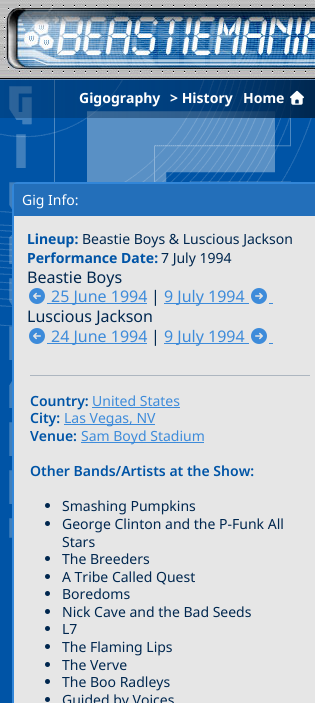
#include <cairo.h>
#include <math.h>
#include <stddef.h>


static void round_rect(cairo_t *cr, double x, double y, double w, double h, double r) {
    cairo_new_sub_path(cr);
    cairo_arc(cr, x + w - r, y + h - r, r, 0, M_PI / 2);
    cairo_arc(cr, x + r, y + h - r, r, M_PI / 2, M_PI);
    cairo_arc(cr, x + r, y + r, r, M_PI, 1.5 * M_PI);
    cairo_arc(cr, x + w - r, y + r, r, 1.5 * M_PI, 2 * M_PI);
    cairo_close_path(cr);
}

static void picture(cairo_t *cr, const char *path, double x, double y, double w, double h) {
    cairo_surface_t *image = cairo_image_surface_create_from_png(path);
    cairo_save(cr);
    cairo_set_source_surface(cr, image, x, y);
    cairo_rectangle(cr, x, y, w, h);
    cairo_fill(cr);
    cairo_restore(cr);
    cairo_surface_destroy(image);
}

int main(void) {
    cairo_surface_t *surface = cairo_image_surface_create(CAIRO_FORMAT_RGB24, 315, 703);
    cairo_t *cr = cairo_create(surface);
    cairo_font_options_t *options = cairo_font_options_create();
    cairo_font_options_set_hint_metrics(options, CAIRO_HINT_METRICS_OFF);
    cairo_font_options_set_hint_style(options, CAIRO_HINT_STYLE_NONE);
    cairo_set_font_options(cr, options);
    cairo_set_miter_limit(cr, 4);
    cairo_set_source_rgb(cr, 0, 0.329, 0.651);
    cairo_paint(cr);
    picture(cr, "img1.png", 0, 80, 315, 472);
    picture(cr, "img2.png", 0, 0, 315, 80);
    cairo_select_font_face(cr, "Noto Sans", CAIRO_FONT_SLANT_NORMAL, CAIRO_FONT_WEIGHT_BOLD);
    cairo_set_font_size(cr, 14);
    cairo_set_source_rgb(cr, 1, 1, 1);
    cairo_move_to(cr, 79, 103);
    cairo_show_text(cr, "Gigography");
    cairo_move_to(cr, 170, 103);
    cairo_show_text(cr, "> History");
    cairo_move_to(cr, 243, 103);
    cairo_show_text(cr, "Home");
    picture(cr, "img3.png", 290, 90, 14, 15);
    cairo_set_source_rgb(cr, 0.902, 0.902, 0.902);
    round_rect(cr, 13, 183, 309, 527, 5);
    cairo_fill_preserve(cr);
    cairo_set_source_rgb(cr, 0.196, 0.525, 0.847);
    cairo_stroke(cr);
    cairo_set_source_rgb(cr, 0.137, 0.435, 0.729);
    cairo_rectangle(cr, 14, 184, 301, 32);
    cairo_fill(cr);
    cairo_select_font_face(cr, "Noto Sans", CAIRO_FONT_SLANT_NORMAL, CAIRO_FONT_WEIGHT_NORMAL);
    cairo_set_source_rgb(cr, 1, 1, 1);
    cairo_move_to(cr, 22, 205);
    cairo_show_text(cr, "Gig Info:");
    cairo_select_font_face(cr, "Noto Sans", CAIRO_FONT_SLANT_NORMAL, CAIRO_FONT_WEIGHT_BOLD);
    cairo_set_source_rgb(cr, 0, 0.329, 0.651);
    cairo_move_to(cr, 27, 244);
    cairo_show_text(cr, "Lineup:");
    cairo_select_font_face(cr, "Noto Sans", CAIRO_FONT_SLANT_NORMAL, CAIRO_FONT_WEIGHT_NORMAL);
    cairo_set_source_rgb(cr, 0, 0.153, 0.31);
    cairo_move_to(cr, 82, 244);
    cairo_show_text(cr, "Beastie Boys & Luscious Jackson");
    cairo_select_font_face(cr, "Noto Sans", CAIRO_FONT_SLANT_NORMAL, CAIRO_FONT_WEIGHT_BOLD);
    cairo_set_source_rgb(cr, 0, 0.329, 0.651);
    cairo_move_to(cr, 27, 263);
    cairo_show_text(cr, "Performance Date:");
    cairo_select_font_face(cr, "Noto Sans", CAIRO_FONT_SLANT_NORMAL, CAIRO_FONT_WEIGHT_NORMAL);
    cairo_set_source_rgb(cr, 0, 0.153, 0.31);
    cairo_move_to(cr, 161, 263);
    cairo_show_text(cr, "7 July 1994");
    cairo_set_font_size(cr, 16);
    cairo_move_to(cr, 27, 283);
    cairo_show_text(cr, "Beastie Boys");
    picture(cr, "img4.png", 29, 288, 16, 16);
    cairo_set_source_rgb(cr, 0.239, 0.545, 0.855);
    cairo_rectangle(cr, 47, 303, 100, 1);
    cairo_fill(cr);
    cairo_move_to(cr, 51, 302);
    cairo_show_text(cr, "25 June 1994");
    cairo_set_source_rgb(cr, 0, 0.153, 0.31);
    cairo_move_to(cr, 151, 302);
    cairo_show_text(cr, "|");
    cairo_set_source_rgb(cr, 0.239, 0.545, 0.855);
    cairo_rectangle(cr, 164, 303, 85, 1);
    cairo_fill(cr);
    cairo_move_to(cr, 164, 302);
    cairo_show_text(cr, "9 July 1994");
    picture(cr, "img5.png", 251, 288, 16, 16);
    cairo_rectangle(cr, 269, 303, 4, 1);
    cairo_fill(cr);
    cairo_set_source_rgb(cr, 0, 0.153, 0.31);
    cairo_move_to(cr, 27, 322);
    cairo_show_text(cr, "Luscious Jackson");
    picture(cr, "img4.png", 29, 328, 16, 16);
    cairo_set_source_rgb(cr, 0.239, 0.545, 0.855);
    cairo_rectangle(cr, 47, 343, 100, 1);
    cairo_fill(cr);
    cairo_move_to(cr, 51, 342);
    cairo_show_text(cr, "24 June 1994");
    cairo_set_source_rgb(cr, 0, 0.153, 0.31);
    cairo_move_to(cr, 151, 342);
    cairo_show_text(cr, "|");
    cairo_set_source_rgb(cr, 0.239, 0.545, 0.855);
    cairo_rectangle(cr, 164, 343, 85, 1);
    cairo_fill(cr);
    cairo_move_to(cr, 164, 342);
    cairo_show_text(cr, "9 July 1994");
    picture(cr, "img5.png", 251, 328, 16, 16);
    cairo_rectangle(cr, 269, 343, 4, 1);
    cairo_fill(cr);
    cairo_set_source_rgb(cr, 0.678, 0.714, 0.753);
    cairo_rectangle(cr, 30, 375, 280, 1);
    cairo_fill(cr);
    cairo_select_font_face(cr, "Noto Sans SemiBold", CAIRO_FONT_SLANT_NORMAL, CAIRO_FONT_WEIGHT_NORMAL);
    cairo_set_font_size(cr, 14);
    cairo_set_source_rgb(cr, 0, 0.329, 0.651);
    cairo_move_to(cr, 30, 406);
    cairo_show_text(cr, "Country:");
    cairo_select_font_face(cr, "Noto Sans", CAIRO_FONT_SLANT_NORMAL, CAIRO_FONT_WEIGHT_NORMAL);
    cairo_set_source_rgb(cr, 0.239, 0.545, 0.855);
    cairo_move_to(cr, 92, 406);
    cairo_show_text(cr, "United States");
    cairo_rectangle(cr, 92, 407, 88, 1);
    cairo_fill(cr);
    cairo_select_font_face(cr, "Noto Sans SemiBold", CAIRO_FONT_SLANT_NORMAL, CAIRO_FONT_WEIGHT_NORMAL);
    cairo_set_source_rgb(cr, 0, 0.329, 0.651);
    cairo_move_to(cr, 30, 423);
    cairo_show_text(cr, "City:");
    cairo_set_source_rgb(cr, 0.239, 0.545, 0.855);
    cairo_rectangle(cr, 64, 424, 91, 1);
    cairo_fill(cr);
    cairo_select_font_face(cr, "Noto Sans", CAIRO_FONT_SLANT_NORMAL, CAIRO_FONT_WEIGHT_NORMAL);
    cairo_move_to(cr, 64, 423);
    cairo_show_text(cr, "Las Vegas, NV");
    cairo_select_font_face(cr, "Noto Sans SemiBold", CAIRO_FONT_SLANT_NORMAL, CAIRO_FONT_WEIGHT_NORMAL);
    cairo_set_source_rgb(cr, 0, 0.329, 0.651);
    cairo_move_to(cr, 30, 441);
    cairo_show_text(cr, "Venue:");
    cairo_set_source_rgb(cr, 0.239, 0.545, 0.855);
    cairo_rectangle(cr, 81, 442, 123, 1);
    cairo_fill(cr);
    cairo_select_font_face(cr, "Noto Sans", CAIRO_FONT_SLANT_NORMAL, CAIRO_FONT_WEIGHT_NORMAL);
    cairo_move_to(cr, 81, 441);
    cairo_show_text(cr, "Sam Boyd Stadium");
    cairo_select_font_face(cr, "Noto Sans SemiBold", CAIRO_FONT_SLANT_NORMAL, CAIRO_FONT_WEIGHT_NORMAL);
    cairo_set_source_rgb(cr, 0, 0.329, 0.651);
    cairo_move_to(cr, 30, 476);
    cairo_show_text(cr, "Other Bands/Artists at the Show:");
    cairo_set_source_rgb(cr, 0, 0.153, 0.31);
    cairo_new_path(cr);
    cairo_arc(cr, 47.5, 505.5, 2.5, 0, 2 * M_PI);
    cairo_fill(cr);
    cairo_select_font_face(cr, "Noto Sans", CAIRO_FONT_SLANT_NORMAL, CAIRO_FONT_WEIGHT_NORMAL);
    cairo_move_to(cr, 62, 511);
    cairo_show_text(cr, "Smashing Pumpkins");
    cairo_new_path(cr);
    cairo_arc(cr, 47.5, 523.5, 2.5, 0, 2 * M_PI);
    cairo_fill(cr);
    cairo_move_to(cr, 62, 529);
    cairo_show_text(cr, "George Clinton and the P-Funk All");
    cairo_move_to(cr, 62, 547);
    cairo_show_text(cr, "Stars");
    cairo_new_path(cr);
    cairo_arc(cr, 47.5, 558.5, 2.5, 0, 2 * M_PI);
    cairo_fill(cr);
    cairo_move_to(cr, 62, 564);
    cairo_show_text(cr, "The Breeders");
    cairo_new_path(cr);
    cairo_arc(cr, 47.5, 576.5, 2.5, 0, 2 * M_PI);
    cairo_fill(cr);
    cairo_move_to(cr, 62, 582);
    cairo_show_text(cr, "A Tribe Called Quest");
    cairo_new_path(cr);
    cairo_arc(cr, 47.5, 593.5, 2.5, 0, 2 * M_PI);
    cairo_fill(cr);
    cairo_move_to(cr, 62, 599);
    cairo_show_text(cr, "Boredoms");
    cairo_new_path(cr);
    cairo_arc(cr, 47.5, 611.5, 2.5, 0, 2 * M_PI);
    cairo_fill(cr);
    cairo_move_to(cr, 62, 617);
    cairo_show_text(cr, "Nick Cave and the Bad Seeds");
    cairo_new_path(cr);
    cairo_arc(cr, 47.5, 628.5, 2.5, 0, 2 * M_PI);
    cairo_fill(cr);
    cairo_move_to(cr, 62, 634);
    cairo_show_text(cr, "L7");
    cairo_new_path(cr);
    cairo_arc(cr, 47.5, 646.5, 2.5, 0, 2 * M_PI);
    cairo_fill(cr);
    cairo_move_to(cr, 62, 652);
    cairo_show_text(cr, "The Flaming Lips");
    cairo_new_path(cr);
    cairo_arc(cr, 47.5, 664.5, 2.5, 0, 2 * M_PI);
    cairo_fill(cr);
    cairo_move_to(cr, 62, 670);
    cairo_show_text(cr, "The Verve");
    cairo_new_path(cr);
    cairo_arc(cr, 47.5, 681.5, 2.5, 0, 2 * M_PI);
    cairo_fill(cr);
    cairo_move_to(cr, 62, 687);
    cairo_show_text(cr, "The Boo Radleys");
    cairo_new_path(cr);
    cairo_arc(cr, 47.5, 699.5, 2.5, 0, 2 * M_PI);
    cairo_fill(cr);
    cairo_move_to(cr, 62, 705);
    cairo_show_text(cr, "Guided by Voices");
    cairo_surface_write_to_png(surface, "page.png");
    cairo_font_options_destroy(options);
    cairo_destroy(cr);
    cairo_surface_destroy(surface);
    return 0;
}
